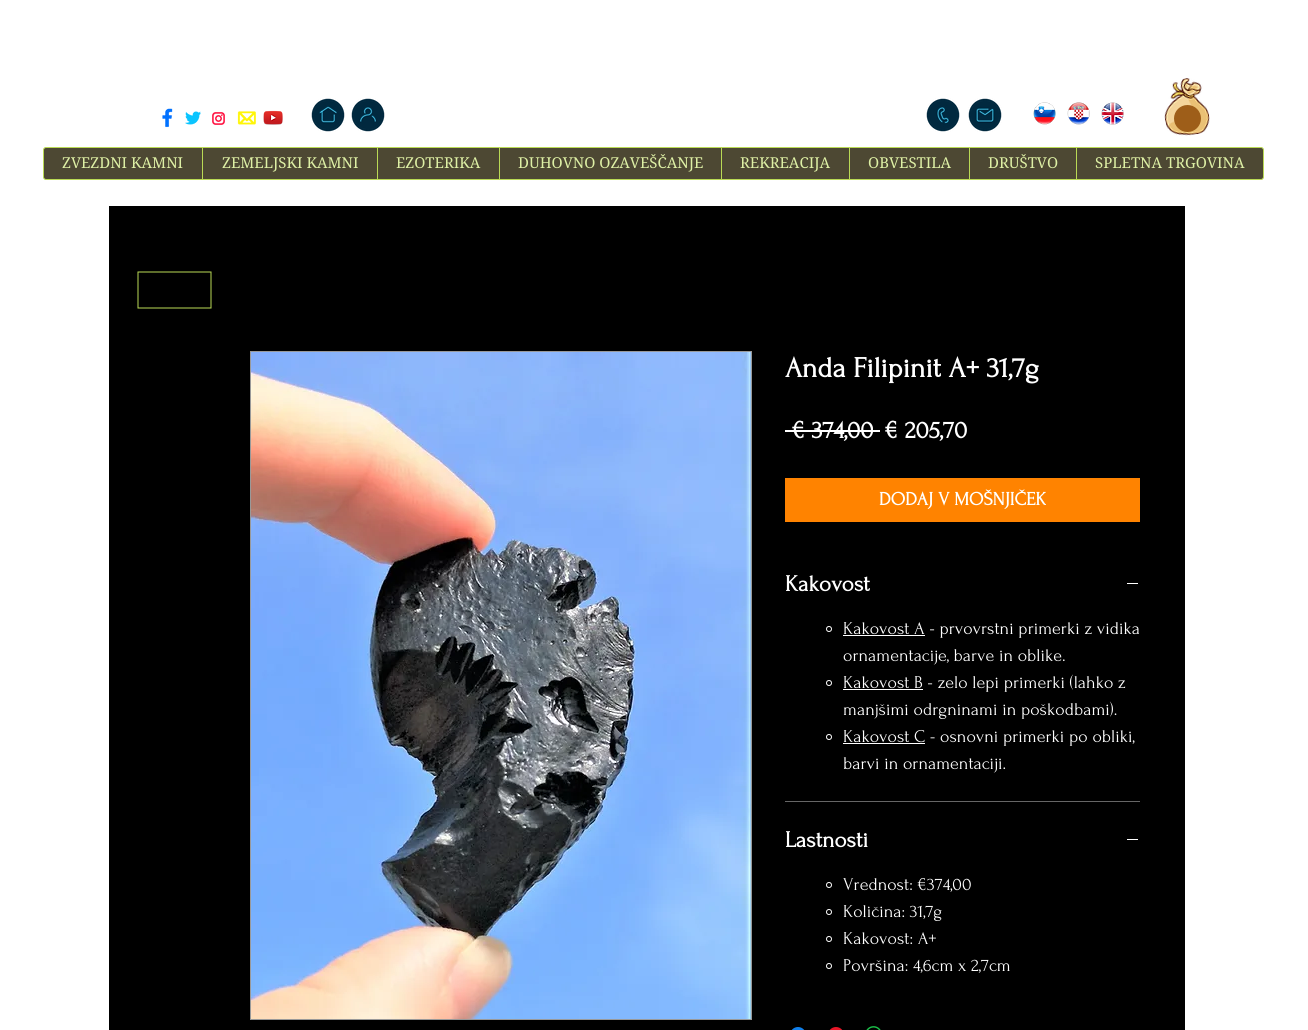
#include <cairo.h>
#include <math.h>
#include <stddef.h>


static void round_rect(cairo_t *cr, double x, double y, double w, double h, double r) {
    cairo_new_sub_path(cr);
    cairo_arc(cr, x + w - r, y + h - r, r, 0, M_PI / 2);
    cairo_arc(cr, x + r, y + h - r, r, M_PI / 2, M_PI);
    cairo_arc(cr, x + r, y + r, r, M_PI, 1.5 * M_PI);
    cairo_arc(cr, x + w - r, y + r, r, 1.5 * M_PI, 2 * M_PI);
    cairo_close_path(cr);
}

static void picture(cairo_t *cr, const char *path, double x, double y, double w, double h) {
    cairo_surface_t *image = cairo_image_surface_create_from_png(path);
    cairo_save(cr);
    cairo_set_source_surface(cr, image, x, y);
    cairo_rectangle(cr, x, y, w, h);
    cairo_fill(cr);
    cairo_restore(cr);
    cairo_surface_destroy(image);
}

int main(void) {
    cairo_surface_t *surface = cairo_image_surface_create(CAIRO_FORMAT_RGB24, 1308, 1030);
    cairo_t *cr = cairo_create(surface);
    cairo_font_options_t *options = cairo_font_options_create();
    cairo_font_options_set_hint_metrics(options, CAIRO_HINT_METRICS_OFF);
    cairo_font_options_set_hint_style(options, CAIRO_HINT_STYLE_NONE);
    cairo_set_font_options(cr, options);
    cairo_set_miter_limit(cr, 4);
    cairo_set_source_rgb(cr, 1, 1, 1);
    cairo_paint(cr);
    picture(cr, "img1.png", 162, 108, 11, 20);
    picture(cr, "img2.png", 185, 111, 16, 14);
    picture(cr, "img3.png", 212, 112, 13, 13);
    picture(cr, "img4.png", 237, 111, 19, 14);
    picture(cr, "img5.png", 263, 110, 20, 15);
    picture(cr, "img6.png", 311, 98, 34, 34);
    picture(cr, "img7.png", 351, 98, 34, 34);
    picture(cr, "img8.png", 926, 98, 34, 34);
    picture(cr, "img9.png", 968, 98, 34, 34);
    picture(cr, "img10.png", 1033, 102, 23, 23);
    picture(cr, "img11.png", 1067, 102, 23, 23);
    picture(cr, "img12.png", 1101, 102, 23, 23);
    cairo_set_source_rgb(cr, 0.302, 0.282, 0.2);
    round_rect(cr, 43.5, 147.5, 1220, 32, 2.5);
    cairo_fill_preserve(cr);
    cairo_set_source_rgb(cr, 0.729, 0.855, 0.333);
    cairo_set_line_width(cr, 1);
    cairo_stroke(cr);
    cairo_select_font_face(cr, "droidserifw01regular", CAIRO_FONT_SLANT_NORMAL, CAIRO_FONT_WEIGHT_NORMAL);
    cairo_set_font_size(cr, 15);
    cairo_set_source_rgb(cr, 0.871, 0.941, 0.647);
    cairo_move_to(cr, 62, 168);
    cairo_show_text(cr, "ZVEZDNI KAMNI");
    cairo_set_source_rgb(cr, 0.729, 0.855, 0.333);
    cairo_rectangle(cr, 202, 148, 1, 31);
    cairo_fill(cr);
    cairo_set_source_rgb(cr, 0.871, 0.941, 0.647);
    cairo_move_to(cr, 222, 168);
    cairo_show_text(cr, "ZEMELJSKI KAMNI");
    cairo_set_source_rgb(cr, 0.729, 0.855, 0.333);
    cairo_rectangle(cr, 377, 148, 1, 31);
    cairo_fill(cr);
    cairo_set_source_rgb(cr, 0.871, 0.941, 0.647);
    cairo_move_to(cr, 396, 168);
    cairo_show_text(cr, "EZOTERIKA");
    cairo_set_source_rgb(cr, 0.729, 0.855, 0.333);
    cairo_rectangle(cr, 499, 148, 1, 31);
    cairo_fill(cr);
    cairo_set_source_rgb(cr, 0.871, 0.941, 0.647);
    cairo_move_to(cr, 518, 168);
    cairo_show_text(cr, "DUHOVNO OZAVEŠČANJE");
    cairo_set_source_rgb(cr, 0.729, 0.855, 0.333);
    cairo_rectangle(cr, 721, 148, 1, 31);
    cairo_fill(cr);
    cairo_set_source_rgb(cr, 0.871, 0.941, 0.647);
    cairo_move_to(cr, 740, 168);
    cairo_show_text(cr, "REKREACIJA");
    cairo_set_source_rgb(cr, 0.729, 0.855, 0.333);
    cairo_rectangle(cr, 849, 148, 1, 31);
    cairo_fill(cr);
    cairo_set_source_rgb(cr, 0.871, 0.941, 0.647);
    cairo_move_to(cr, 868, 168);
    cairo_show_text(cr, "OBVESTILA");
    cairo_set_source_rgb(cr, 0.729, 0.855, 0.333);
    cairo_rectangle(cr, 969, 148, 1, 31);
    cairo_fill(cr);
    cairo_set_source_rgb(cr, 0.871, 0.941, 0.647);
    cairo_move_to(cr, 988, 168);
    cairo_show_text(cr, "DRUŠTVO");
    cairo_set_source_rgb(cr, 0.729, 0.855, 0.333);
    cairo_rectangle(cr, 1076, 148, 1, 31);
    cairo_fill(cr);
    cairo_set_source_rgb(cr, 0.871, 0.941, 0.647);
    cairo_move_to(cr, 1095, 168);
    cairo_show_text(cr, "SPLETNA TRGOVINA");
    picture(cr, "img13.png", 1164, 78, 46, 58);
    cairo_set_source_rgb(cr, 0.62, 0.369, 0.098);
    cairo_arc(cr, 1187.5, 118.5, 13.5, 0, 2 * M_PI);
    cairo_fill(cr);
    cairo_set_source_rgb(cr, 0, 0, 0);
    cairo_rectangle(cr, 109, 206, 1076, 824);
    cairo_fill(cr);
    cairo_new_path(cr);
    cairo_move_to(cr, 211, 272);
    cairo_line_to(cr, 211, 308);
    cairo_line_to(cr, 138, 308);
    cairo_line_to(cr, 138, 272);
    cairo_close_path(cr);
    cairo_set_source_rgb(cr, 0.729, 0.855, 0.333);
    cairo_stroke(cr);
    cairo_rectangle(cr, 250.5, 351.5, 501, 668);
    cairo_set_source_rgb(cr, 0.6, 0.6, 0.6);
    cairo_stroke(cr);
    picture(cr, "img14.png", 251, 352, 500, 667);
    cairo_select_font_face(cr, "Forum", CAIRO_FONT_SLANT_NORMAL, CAIRO_FONT_WEIGHT_BOLD);
    cairo_set_font_size(cr, 29);
    cairo_set_source_rgb(cr, 1, 1, 1);
    cairo_move_to(cr, 785, 377);
    cairo_show_text(cr, "Anda Filipinit A+ 31,7g");
    cairo_set_font_size(cr, 25);
    cairo_move_to(cr, 792, 438);
    cairo_show_text(cr, "€ 374,00");
    cairo_rectangle(cr, 785, 430, 95, 2);
    cairo_fill(cr);
    cairo_move_to(cr, 885, 438);
    cairo_show_text(cr, "€ 205,70");
    cairo_set_source_rgb(cr, 1, 0.514, 0);
    cairo_rectangle(cr, 785, 478, 355, 44);
    cairo_fill(cr);
    cairo_set_font_size(cr, 19);
    cairo_set_source_rgb(cr, 1, 1, 1);
    cairo_move_to(cr, 879, 505);
    cairo_show_text(cr, "DODAJ V MOŠNJIČEK");
    cairo_set_source_rgb(cr, 0.4, 0.4, 0.4);
    cairo_rectangle(cr, 785, 801, 355, 1);
    cairo_fill(cr);
    cairo_set_font_size(cr, 23);
    cairo_set_source_rgb(cr, 1, 1, 1);
    cairo_move_to(cr, 785, 591);
    cairo_show_text(cr, "Kakovost");
    cairo_rectangle(cr, 1127, 583, 11, 1);
    cairo_fill(cr);
    cairo_arc(cr, 829, 629, 2.5, 0, 2 * M_PI);
    cairo_stroke(cr);
    cairo_rectangle(cr, 843, 635, 82, 1);
    cairo_fill(cr);
    cairo_select_font_face(cr, "Forum", CAIRO_FONT_SLANT_NORMAL, CAIRO_FONT_WEIGHT_NORMAL);
    cairo_set_font_size(cr, 18);
    cairo_move_to(cr, 843, 634);
    cairo_show_text(cr, "Kakovost A - prvovrstni primerki z vidika");
    cairo_move_to(cr, 843, 661);
    cairo_show_text(cr, "ornamentacije, barve in oblike.");
    cairo_new_path(cr);
    cairo_arc(cr, 829, 683, 2.5, 0, 2 * M_PI);
    cairo_stroke(cr);
    cairo_rectangle(cr, 843, 689, 80, 1);
    cairo_fill(cr);
    cairo_move_to(cr, 843, 688);
    cairo_show_text(cr, "Kakovost B - zelo lepi primerki (lahko z");
    cairo_move_to(cr, 843, 715);
    cairo_show_text(cr, "manjšimi odrgninami in poškodbami).");
    cairo_new_path(cr);
    cairo_arc(cr, 829, 737, 2.5, 0, 2 * M_PI);
    cairo_stroke(cr);
    cairo_rectangle(cr, 843, 743, 82, 1);
    cairo_fill(cr);
    cairo_move_to(cr, 843, 742);
    cairo_show_text(cr, "Kakovost C - osnovni primerki po obliki,");
    cairo_move_to(cr, 843, 769);
    cairo_show_text(cr, "barvi in ornamentaciji.");
    cairo_select_font_face(cr, "Forum", CAIRO_FONT_SLANT_NORMAL, CAIRO_FONT_WEIGHT_BOLD);
    cairo_set_font_size(cr, 23);
    cairo_move_to(cr, 785, 847);
    cairo_show_text(cr, "Lastnosti");
    cairo_rectangle(cr, 1127, 839, 11, 1);
    cairo_fill(cr);
    cairo_arc(cr, 829, 885, 2.5, 0, 2 * M_PI);
    cairo_stroke(cr);
    cairo_select_font_face(cr, "Forum", CAIRO_FONT_SLANT_NORMAL, CAIRO_FONT_WEIGHT_NORMAL);
    cairo_set_font_size(cr, 18);
    cairo_move_to(cr, 843, 890);
    cairo_show_text(cr, "Vrednost: €374,00");
    cairo_new_path(cr);
    cairo_arc(cr, 829, 912, 2.5, 0, 2 * M_PI);
    cairo_stroke(cr);
    cairo_move_to(cr, 843, 917);
    cairo_show_text(cr, "Količina: 31,7g");
    cairo_new_path(cr);
    cairo_arc(cr, 829, 939, 2.5, 0, 2 * M_PI);
    cairo_stroke(cr);
    cairo_move_to(cr, 843, 944);
    cairo_show_text(cr, "Kakovost: A+");
    cairo_new_path(cr);
    cairo_arc(cr, 829, 966, 2.5, 0, 2 * M_PI);
    cairo_stroke(cr);
    cairo_move_to(cr, 843, 971);
    cairo_show_text(cr, "Površina: 4,6cm x 2,7cm");
    picture(cr, "img15.png", 791, 1027, 14, 3);
    picture(cr, "img16.png", 829, 1027, 14, 3);
    picture(cr, "img17.png", 866, 1026, 15, 4);
    cairo_surface_write_to_png(surface, "page.png");
    cairo_font_options_destroy(options);
    cairo_destroy(cr);
    cairo_surface_destroy(surface);
    return 0;
}
